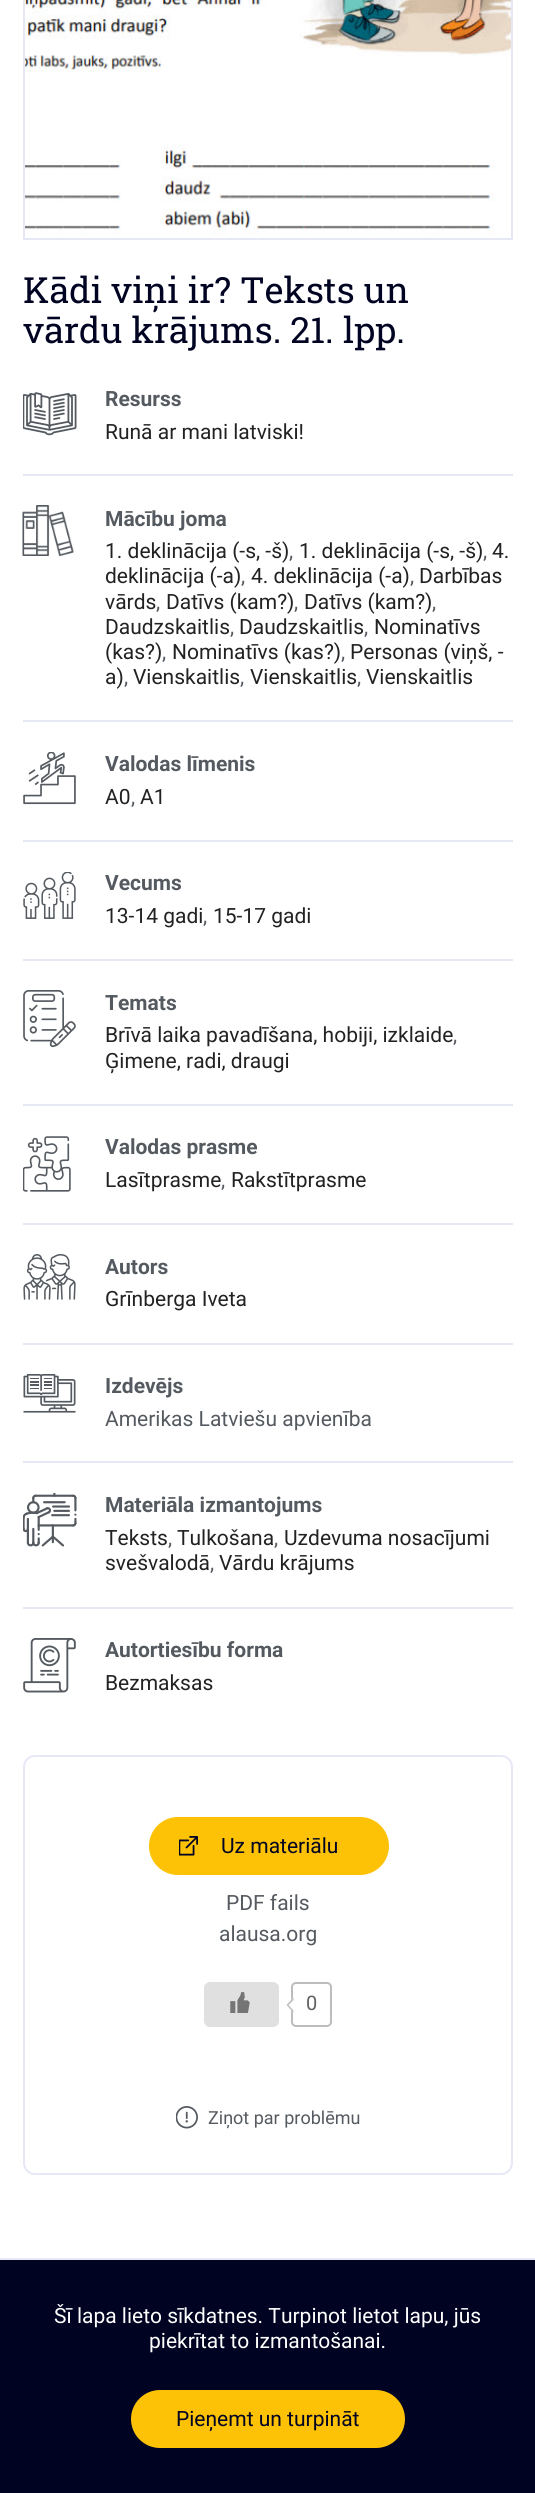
#include <cairo.h>
#include <math.h>
#include <stddef.h>


static void round_rect(cairo_t *cr, double x, double y, double w, double h, double r) {
    cairo_new_sub_path(cr);
    cairo_arc(cr, x + w - r, y + h - r, r, 0, M_PI / 2);
    cairo_arc(cr, x + r, y + h - r, r, M_PI / 2, M_PI);
    cairo_arc(cr, x + r, y + r, r, M_PI, 1.5 * M_PI);
    cairo_arc(cr, x + w - r, y + r, r, 1.5 * M_PI, 2 * M_PI);
    cairo_close_path(cr);
}

static void picture(cairo_t *cr, const char *path, double x, double y, double w, double h) {
    cairo_surface_t *image = cairo_image_surface_create_from_png(path);
    cairo_save(cr);
    cairo_set_source_surface(cr, image, x, y);
    cairo_rectangle(cr, x, y, w, h);
    cairo_fill(cr);
    cairo_restore(cr);
    cairo_surface_destroy(image);
}

int main(void) {
    cairo_surface_t *surface = cairo_image_surface_create(CAIRO_FORMAT_RGB24, 535, 2493);
    cairo_t *cr = cairo_create(surface);
    cairo_font_options_t *options = cairo_font_options_create();
    cairo_font_options_set_hint_metrics(options, CAIRO_HINT_METRICS_OFF);
    cairo_font_options_set_hint_style(options, CAIRO_HINT_STYLE_NONE);
    cairo_set_font_options(cr, options);
    cairo_set_miter_limit(cr, 4);
    cairo_set_source_rgb(cr, 1, 1, 1);
    cairo_paint(cr);
    picture(cr, "img1.png", 25, 0, 486, 234);
    cairo_rectangle(cr, 24, -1, 488, 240);
    cairo_set_source_rgb(cr, 0.906, 0.91, 0.961);
    cairo_stroke(cr);
    cairo_select_font_face(cr, "Roboto Slab", CAIRO_FONT_SLANT_NORMAL, CAIRO_FONT_WEIGHT_NORMAL);
    cairo_set_font_size(cr, 36);
    cairo_set_source_rgb(cr, 0, 0.012, 0.129);
    cairo_move_to(cr, 23, 303);
    cairo_show_text(cr, "Kādi viņi ir? Teksts un");
    cairo_move_to(cr, 23, 343);
    cairo_show_text(cr, "vārdu krājums. 21. lpp.");
    cairo_set_source_rgb(cr, 0.906, 0.91, 0.961);
    cairo_rectangle(cr, 23, 474, 490, 2);
    cairo_fill(cr);
    picture(cr, "img2.png", 23, 392, 54, 44);
    cairo_select_font_face(cr, "Roboto", CAIRO_FONT_SLANT_NORMAL, CAIRO_FONT_WEIGHT_BOLD);
    cairo_set_font_size(cr, 21);
    cairo_set_source_rgb(cr, 0.333, 0.353, 0.376);
    cairo_move_to(cr, 105, 406);
    cairo_show_text(cr, "Resurss");
    cairo_select_font_face(cr, "Roboto", CAIRO_FONT_SLANT_NORMAL, CAIRO_FONT_WEIGHT_NORMAL);
    cairo_set_source_rgb(cr, 0.133, 0.133, 0.133);
    cairo_move_to(cr, 105, 439);
    cairo_show_text(cr, "Runā ar mani latviski!");
    cairo_set_source_rgb(cr, 0.906, 0.91, 0.961);
    cairo_rectangle(cr, 23, 720, 490, 2);
    cairo_fill(cr);
    picture(cr, "img3.png", 22, 505, 52, 51);
    cairo_select_font_face(cr, "Roboto", CAIRO_FONT_SLANT_NORMAL, CAIRO_FONT_WEIGHT_BOLD);
    cairo_set_source_rgb(cr, 0.333, 0.353, 0.376);
    cairo_move_to(cr, 105, 526);
    cairo_show_text(cr, "Mācību joma");
    cairo_select_font_face(cr, "Roboto", CAIRO_FONT_SLANT_NORMAL, CAIRO_FONT_WEIGHT_NORMAL);
    cairo_set_source_rgb(cr, 0.133, 0.133, 0.133);
    cairo_move_to(cr, 105, 558);
    cairo_show_text(cr, "1. deklinācija (-s, -š)");
    cairo_set_source_rgb(cr, 0.333, 0.353, 0.376);
    cairo_move_to(cr, 289, 558);
    cairo_show_text(cr, ",");
    cairo_set_source_rgb(cr, 0.133, 0.133, 0.133);
    cairo_move_to(cr, 299, 558);
    cairo_show_text(cr, "1. deklinācija (-s, -š)");
    cairo_set_source_rgb(cr, 0.333, 0.353, 0.376);
    cairo_move_to(cr, 483, 558);
    cairo_show_text(cr, ",");
    cairo_set_source_rgb(cr, 0.133, 0.133, 0.133);
    cairo_move_to(cr, 492, 558);
    cairo_show_text(cr, "4.");
    cairo_move_to(cr, 105, 583);
    cairo_show_text(cr, "deklinācija (-a)");
    cairo_set_source_rgb(cr, 0.333, 0.353, 0.376);
    cairo_move_to(cr, 241, 583);
    cairo_show_text(cr, ",");
    cairo_set_source_rgb(cr, 0.133, 0.133, 0.133);
    cairo_move_to(cr, 251, 583);
    cairo_show_text(cr, "4. deklinācija (-a)");
    cairo_set_source_rgb(cr, 0.333, 0.353, 0.376);
    cairo_move_to(cr, 410, 583);
    cairo_show_text(cr, ",");
    cairo_set_source_rgb(cr, 0.133, 0.133, 0.133);
    cairo_move_to(cr, 419, 583);
    cairo_show_text(cr, "Darbības");
    cairo_move_to(cr, 105, 609);
    cairo_show_text(cr, "vārds");
    cairo_set_source_rgb(cr, 0.333, 0.353, 0.376);
    cairo_move_to(cr, 156, 609);
    cairo_show_text(cr, ",");
    cairo_set_source_rgb(cr, 0.133, 0.133, 0.133);
    cairo_move_to(cr, 166, 609);
    cairo_show_text(cr, "Datīvs (kam?)");
    cairo_set_source_rgb(cr, 0.333, 0.353, 0.376);
    cairo_move_to(cr, 294, 609);
    cairo_show_text(cr, ",");
    cairo_set_source_rgb(cr, 0.133, 0.133, 0.133);
    cairo_move_to(cr, 304, 609);
    cairo_show_text(cr, "Datīvs (kam?)");
    cairo_set_source_rgb(cr, 0.333, 0.353, 0.376);
    cairo_move_to(cr, 432, 609);
    cairo_show_text(cr, ",");
    cairo_set_source_rgb(cr, 0.133, 0.133, 0.133);
    cairo_move_to(cr, 105, 634);
    cairo_show_text(cr, "Daudzskaitlis");
    cairo_set_source_rgb(cr, 0.333, 0.353, 0.376);
    cairo_move_to(cr, 230, 634);
    cairo_show_text(cr, ",");
    cairo_set_source_rgb(cr, 0.133, 0.133, 0.133);
    cairo_move_to(cr, 239, 634);
    cairo_show_text(cr, "Daudzskaitlis");
    cairo_set_source_rgb(cr, 0.333, 0.353, 0.376);
    cairo_move_to(cr, 364, 634);
    cairo_show_text(cr, ",");
    cairo_set_source_rgb(cr, 0.133, 0.133, 0.133);
    cairo_move_to(cr, 374, 634);
    cairo_show_text(cr, "Nominatīvs");
    cairo_move_to(cr, 105, 659);
    cairo_show_text(cr, "(kas?)");
    cairo_set_source_rgb(cr, 0.333, 0.353, 0.376);
    cairo_move_to(cr, 162, 659);
    cairo_show_text(cr, ",");
    cairo_set_source_rgb(cr, 0.133, 0.133, 0.133);
    cairo_move_to(cr, 172, 659);
    cairo_show_text(cr, "Nominatīvs (kas?)");
    cairo_set_source_rgb(cr, 0.333, 0.353, 0.376);
    cairo_move_to(cr, 341, 659);
    cairo_show_text(cr, ",");
    cairo_set_source_rgb(cr, 0.133, 0.133, 0.133);
    cairo_move_to(cr, 350, 659);
    cairo_show_text(cr, "Personas (viņš, -");
    cairo_move_to(cr, 105, 684);
    cairo_show_text(cr, "a)");
    cairo_set_source_rgb(cr, 0.333, 0.353, 0.376);
    cairo_move_to(cr, 124, 684);
    cairo_show_text(cr, ",");
    cairo_set_source_rgb(cr, 0.133, 0.133, 0.133);
    cairo_move_to(cr, 133, 684);
    cairo_show_text(cr, "Vienskaitlis");
    cairo_set_source_rgb(cr, 0.333, 0.353, 0.376);
    cairo_move_to(cr, 240, 684);
    cairo_show_text(cr, ",");
    cairo_set_source_rgb(cr, 0.133, 0.133, 0.133);
    cairo_move_to(cr, 250, 684);
    cairo_show_text(cr, "Vienskaitlis");
    cairo_set_source_rgb(cr, 0.333, 0.353, 0.376);
    cairo_move_to(cr, 357, 684);
    cairo_show_text(cr, ",");
    cairo_set_source_rgb(cr, 0.133, 0.133, 0.133);
    cairo_move_to(cr, 366, 684);
    cairo_show_text(cr, "Vienskaitlis");
    cairo_set_source_rgb(cr, 0.906, 0.91, 0.961);
    cairo_rectangle(cr, 23, 840, 490, 2);
    cairo_fill(cr);
    picture(cr, "img4.png", 23, 752, 53, 53);
    cairo_select_font_face(cr, "Roboto", CAIRO_FONT_SLANT_NORMAL, CAIRO_FONT_WEIGHT_BOLD);
    cairo_set_source_rgb(cr, 0.333, 0.353, 0.376);
    cairo_move_to(cr, 105, 771);
    cairo_show_text(cr, "Valodas līmenis");
    cairo_select_font_face(cr, "Roboto", CAIRO_FONT_SLANT_NORMAL, CAIRO_FONT_WEIGHT_NORMAL);
    cairo_set_source_rgb(cr, 0.133, 0.133, 0.133);
    cairo_move_to(cr, 105, 804);
    cairo_show_text(cr, "A0");
    cairo_set_source_rgb(cr, 0.333, 0.353, 0.376);
    cairo_move_to(cr, 131, 804);
    cairo_show_text(cr, ",");
    cairo_set_source_rgb(cr, 0.133, 0.133, 0.133);
    cairo_move_to(cr, 140, 804);
    cairo_show_text(cr, "A1");
    cairo_set_source_rgb(cr, 0.906, 0.91, 0.961);
    cairo_rectangle(cr, 23, 959, 490, 2);
    cairo_fill(cr);
    picture(cr, "img5.png", 23, 872, 53, 47);
    cairo_select_font_face(cr, "Roboto", CAIRO_FONT_SLANT_NORMAL, CAIRO_FONT_WEIGHT_BOLD);
    cairo_set_source_rgb(cr, 0.333, 0.353, 0.376);
    cairo_move_to(cr, 105, 890);
    cairo_show_text(cr, "Vecums");
    cairo_select_font_face(cr, "Roboto", CAIRO_FONT_SLANT_NORMAL, CAIRO_FONT_WEIGHT_NORMAL);
    cairo_set_source_rgb(cr, 0.133, 0.133, 0.133);
    cairo_move_to(cr, 105, 923);
    cairo_show_text(cr, "13-14 gadi");
    cairo_set_source_rgb(cr, 0.333, 0.353, 0.376);
    cairo_move_to(cr, 203, 923);
    cairo_show_text(cr, ",");
    cairo_set_source_rgb(cr, 0.133, 0.133, 0.133);
    cairo_move_to(cr, 213, 923);
    cairo_show_text(cr, "15-17 gadi");
    cairo_set_source_rgb(cr, 0.906, 0.91, 0.961);
    cairo_rectangle(cr, 23, 1104, 490, 2);
    cairo_fill(cr);
    picture(cr, "img6.png", 23, 990, 53, 58);
    cairo_select_font_face(cr, "Roboto", CAIRO_FONT_SLANT_NORMAL, CAIRO_FONT_WEIGHT_BOLD);
    cairo_set_source_rgb(cr, 0.333, 0.353, 0.376);
    cairo_move_to(cr, 105, 1010);
    cairo_show_text(cr, "Temats");
    cairo_select_font_face(cr, "Roboto", CAIRO_FONT_SLANT_NORMAL, CAIRO_FONT_WEIGHT_NORMAL);
    cairo_set_source_rgb(cr, 0.133, 0.133, 0.133);
    cairo_move_to(cr, 105, 1042);
    cairo_show_text(cr, "Brīvā laika pavadīšana, hobiji, izklaide");
    cairo_set_source_rgb(cr, 0.333, 0.353, 0.376);
    cairo_move_to(cr, 453, 1042);
    cairo_show_text(cr, ",");
    cairo_set_source_rgb(cr, 0.133, 0.133, 0.133);
    cairo_move_to(cr, 105, 1068);
    cairo_show_text(cr, "Ģimene, radi, draugi");
    cairo_set_source_rgb(cr, 0.906, 0.91, 0.961);
    cairo_rectangle(cr, 23, 1223, 490, 2);
    cairo_fill(cr);
    picture(cr, "img7.png", 23, 1136, 48, 56);
    cairo_select_font_face(cr, "Roboto", CAIRO_FONT_SLANT_NORMAL, CAIRO_FONT_WEIGHT_BOLD);
    cairo_set_source_rgb(cr, 0.333, 0.353, 0.376);
    cairo_move_to(cr, 105, 1154);
    cairo_show_text(cr, "Valodas prasme");
    cairo_select_font_face(cr, "Roboto", CAIRO_FONT_SLANT_NORMAL, CAIRO_FONT_WEIGHT_NORMAL);
    cairo_set_source_rgb(cr, 0.133, 0.133, 0.133);
    cairo_move_to(cr, 105, 1187);
    cairo_show_text(cr, "Lasītprasme");
    cairo_set_source_rgb(cr, 0.333, 0.353, 0.376);
    cairo_move_to(cr, 221, 1187);
    cairo_show_text(cr, ",");
    cairo_set_source_rgb(cr, 0.133, 0.133, 0.133);
    cairo_move_to(cr, 231, 1187);
    cairo_show_text(cr, "Rakstītprasme");
    cairo_set_source_rgb(cr, 0.906, 0.91, 0.961);
    cairo_rectangle(cr, 23, 1343, 490, 2);
    cairo_fill(cr);
    picture(cr, "img8.png", 23, 1254, 53, 46);
    cairo_select_font_face(cr, "Roboto", CAIRO_FONT_SLANT_NORMAL, CAIRO_FONT_WEIGHT_BOLD);
    cairo_set_source_rgb(cr, 0.333, 0.353, 0.376);
    cairo_move_to(cr, 105, 1274);
    cairo_show_text(cr, "Autors");
    cairo_select_font_face(cr, "Roboto", CAIRO_FONT_SLANT_NORMAL, CAIRO_FONT_WEIGHT_NORMAL);
    cairo_set_source_rgb(cr, 0.133, 0.133, 0.133);
    cairo_move_to(cr, 105, 1306);
    cairo_show_text(cr, "Grīnberga Iveta");
    cairo_set_source_rgb(cr, 0.906, 0.91, 0.961);
    cairo_rectangle(cr, 23, 1461, 490, 2);
    cairo_fill(cr);
    picture(cr, "img9.png", 23, 1374, 53, 39);
    cairo_select_font_face(cr, "Roboto", CAIRO_FONT_SLANT_NORMAL, CAIRO_FONT_WEIGHT_BOLD);
    cairo_set_source_rgb(cr, 0.333, 0.353, 0.376);
    cairo_move_to(cr, 105, 1393);
    cairo_show_text(cr, "Izdevējs");
    cairo_select_font_face(cr, "Roboto", CAIRO_FONT_SLANT_NORMAL, CAIRO_FONT_WEIGHT_NORMAL);
    cairo_move_to(cr, 105, 1426);
    cairo_show_text(cr, "Amerikas Latviešu apvienība");
    cairo_set_source_rgb(cr, 0.906, 0.91, 0.961);
    cairo_rectangle(cr, 23, 1607, 490, 2);
    cairo_fill(cr);
    picture(cr, "img10.png", 23, 1493, 54, 54);
    cairo_select_font_face(cr, "Roboto", CAIRO_FONT_SLANT_NORMAL, CAIRO_FONT_WEIGHT_BOLD);
    cairo_set_source_rgb(cr, 0.333, 0.353, 0.376);
    cairo_move_to(cr, 105, 1512);
    cairo_show_text(cr, "Materiāla izmantojums");
    cairo_select_font_face(cr, "Roboto", CAIRO_FONT_SLANT_NORMAL, CAIRO_FONT_WEIGHT_NORMAL);
    cairo_set_source_rgb(cr, 0.133, 0.133, 0.133);
    cairo_move_to(cr, 105, 1545);
    cairo_show_text(cr, "Teksts");
    cairo_set_source_rgb(cr, 0.333, 0.353, 0.376);
    cairo_move_to(cr, 168, 1545);
    cairo_show_text(cr, ",");
    cairo_set_source_rgb(cr, 0.133, 0.133, 0.133);
    cairo_move_to(cr, 177, 1545);
    cairo_show_text(cr, "Tulkošana");
    cairo_set_source_rgb(cr, 0.333, 0.353, 0.376);
    cairo_move_to(cr, 274, 1545);
    cairo_show_text(cr, ",");
    cairo_set_source_rgb(cr, 0.133, 0.133, 0.133);
    cairo_move_to(cr, 284, 1545);
    cairo_show_text(cr, "Uzdevuma nosacījumi");
    cairo_move_to(cr, 105, 1570);
    cairo_show_text(cr, "svešvalodā");
    cairo_set_source_rgb(cr, 0.333, 0.353, 0.376);
    cairo_move_to(cr, 210, 1570);
    cairo_show_text(cr, ",");
    cairo_set_source_rgb(cr, 0.133, 0.133, 0.133);
    cairo_move_to(cr, 219, 1570);
    cairo_show_text(cr, "Vārdu krājums");
    picture(cr, "img11.png", 23, 1638, 53, 55);
    cairo_select_font_face(cr, "Roboto", CAIRO_FONT_SLANT_NORMAL, CAIRO_FONT_WEIGHT_BOLD);
    cairo_set_source_rgb(cr, 0.333, 0.353, 0.376);
    cairo_move_to(cr, 105, 1657);
    cairo_show_text(cr, "Autortiesību forma");
    cairo_select_font_face(cr, "Roboto", CAIRO_FONT_SLANT_NORMAL, CAIRO_FONT_WEIGHT_NORMAL);
    cairo_set_source_rgb(cr, 0.133, 0.133, 0.133);
    cairo_move_to(cr, 105, 1690);
    cairo_show_text(cr, "Bezmaksas");
    round_rect(cr, 24, 1756, 488, 418, 11);
    cairo_set_source_rgb(cr, 0.906, 0.91, 0.961);
    cairo_stroke(cr);
    cairo_set_source_rgb(cr, 0.992, 0.757, 0.027);
    round_rect(cr, 149, 1817, 240, 58, 29);
    cairo_fill(cr);
    picture(cr, "img12.png", 179, 1836, 19, 20);
    cairo_set_source_rgb(cr, 0, 0.012, 0.129);
    cairo_move_to(cr, 221, 1853);
    cairo_show_text(cr, "Uz materiālu");
    cairo_set_source_rgb(cr, 0.333, 0.353, 0.376);
    cairo_move_to(cr, 226, 1910);
    cairo_show_text(cr, "PDF fails");
    cairo_move_to(cr, 219, 1941);
    cairo_show_text(cr, "alausa.org");
    cairo_set_source_rgb(cr, 0.878, 0.878, 0.878);
    round_rect(cr, 204, 1982, 75, 45, 6);
    cairo_fill(cr);
    picture(cr, "img13.png", 230, 1992, 20, 21);
    round_rect(cr, 292, 1983, 39, 43, 4);
    cairo_set_source_rgb(cr, 0.741, 0.741, 0.741);
    cairo_stroke(cr);
    cairo_set_source_rgb(cr, 1, 1, 1);
    cairo_new_path(cr);
    cairo_move_to(cr, 293.5, 1997.5);
    cairo_line_to(cr, 301, 2005);
    cairo_line_to(cr, 293.5, 2012.5);
    cairo_line_to(cr, 286.5, 2005);
    cairo_close_path(cr);
    cairo_fill(cr);
    cairo_set_source_rgb(cr, 0.741, 0.741, 0.741);
    cairo_new_path(cr);
    cairo_move_to(cr, 293.5, 2012.5);
    cairo_line_to(cr, 286.5, 2005);
    cairo_line_to(cr, 288.5, 2005);
    cairo_line_to(cr, 293.5, 2010.5);
    cairo_close_path(cr);
    cairo_move_to(cr, 286.5, 2005);
    cairo_line_to(cr, 293.5, 1997.5);
    cairo_line_to(cr, 293.5, 2000);
    cairo_line_to(cr, 288.5, 2005);
    cairo_close_path(cr);
    cairo_fill(cr);
    cairo_set_font_size(cr, 20);
    cairo_set_source_rgb(cr, 0.38, 0.38, 0.38);
    cairo_move_to(cr, 306, 2010);
    cairo_show_text(cr, "0");
    picture(cr, "img14.png", 176, 2106, 22, 23);
    cairo_set_font_size(cr, 18);
    cairo_set_source_rgb(cr, 0.333, 0.353, 0.376);
    cairo_move_to(cr, 208, 2124);
    cairo_show_text(cr, "Ziņot par problēmu");
    cairo_set_source_rgb(cr, 0, 0.012, 0.129);
    cairo_rectangle(cr, 0, 2260, 535, 233);
    cairo_fill(cr);
    cairo_set_source_rgb(cr, 0.906, 0.91, 0.961);
    cairo_rectangle(cr, 0, 2258, 535, 2);
    cairo_fill(cr);
    cairo_set_font_size(cr, 21);
    cairo_set_source_rgb(cr, 1, 1, 1);
    cairo_move_to(cr, 54, 2323);
    cairo_show_text(cr, "Šī lapa lieto sīkdatnes. Turpinot lietot lapu, jūs");
    cairo_move_to(cr, 149, 2348);
    cairo_show_text(cr, "piekrītat to izmantošanai.");
    cairo_set_source_rgb(cr, 0.992, 0.757, 0.027);
    round_rect(cr, 131, 2390, 274, 58, 29);
    cairo_fill(cr);
    cairo_set_source_rgb(cr, 0, 0.012, 0.129);
    cairo_move_to(cr, 176, 2426);
    cairo_show_text(cr, "Pieņemt un turpināt");
    cairo_surface_write_to_png(surface, "page.png");
    cairo_font_options_destroy(options);
    cairo_destroy(cr);
    cairo_surface_destroy(surface);
    return 0;
}
